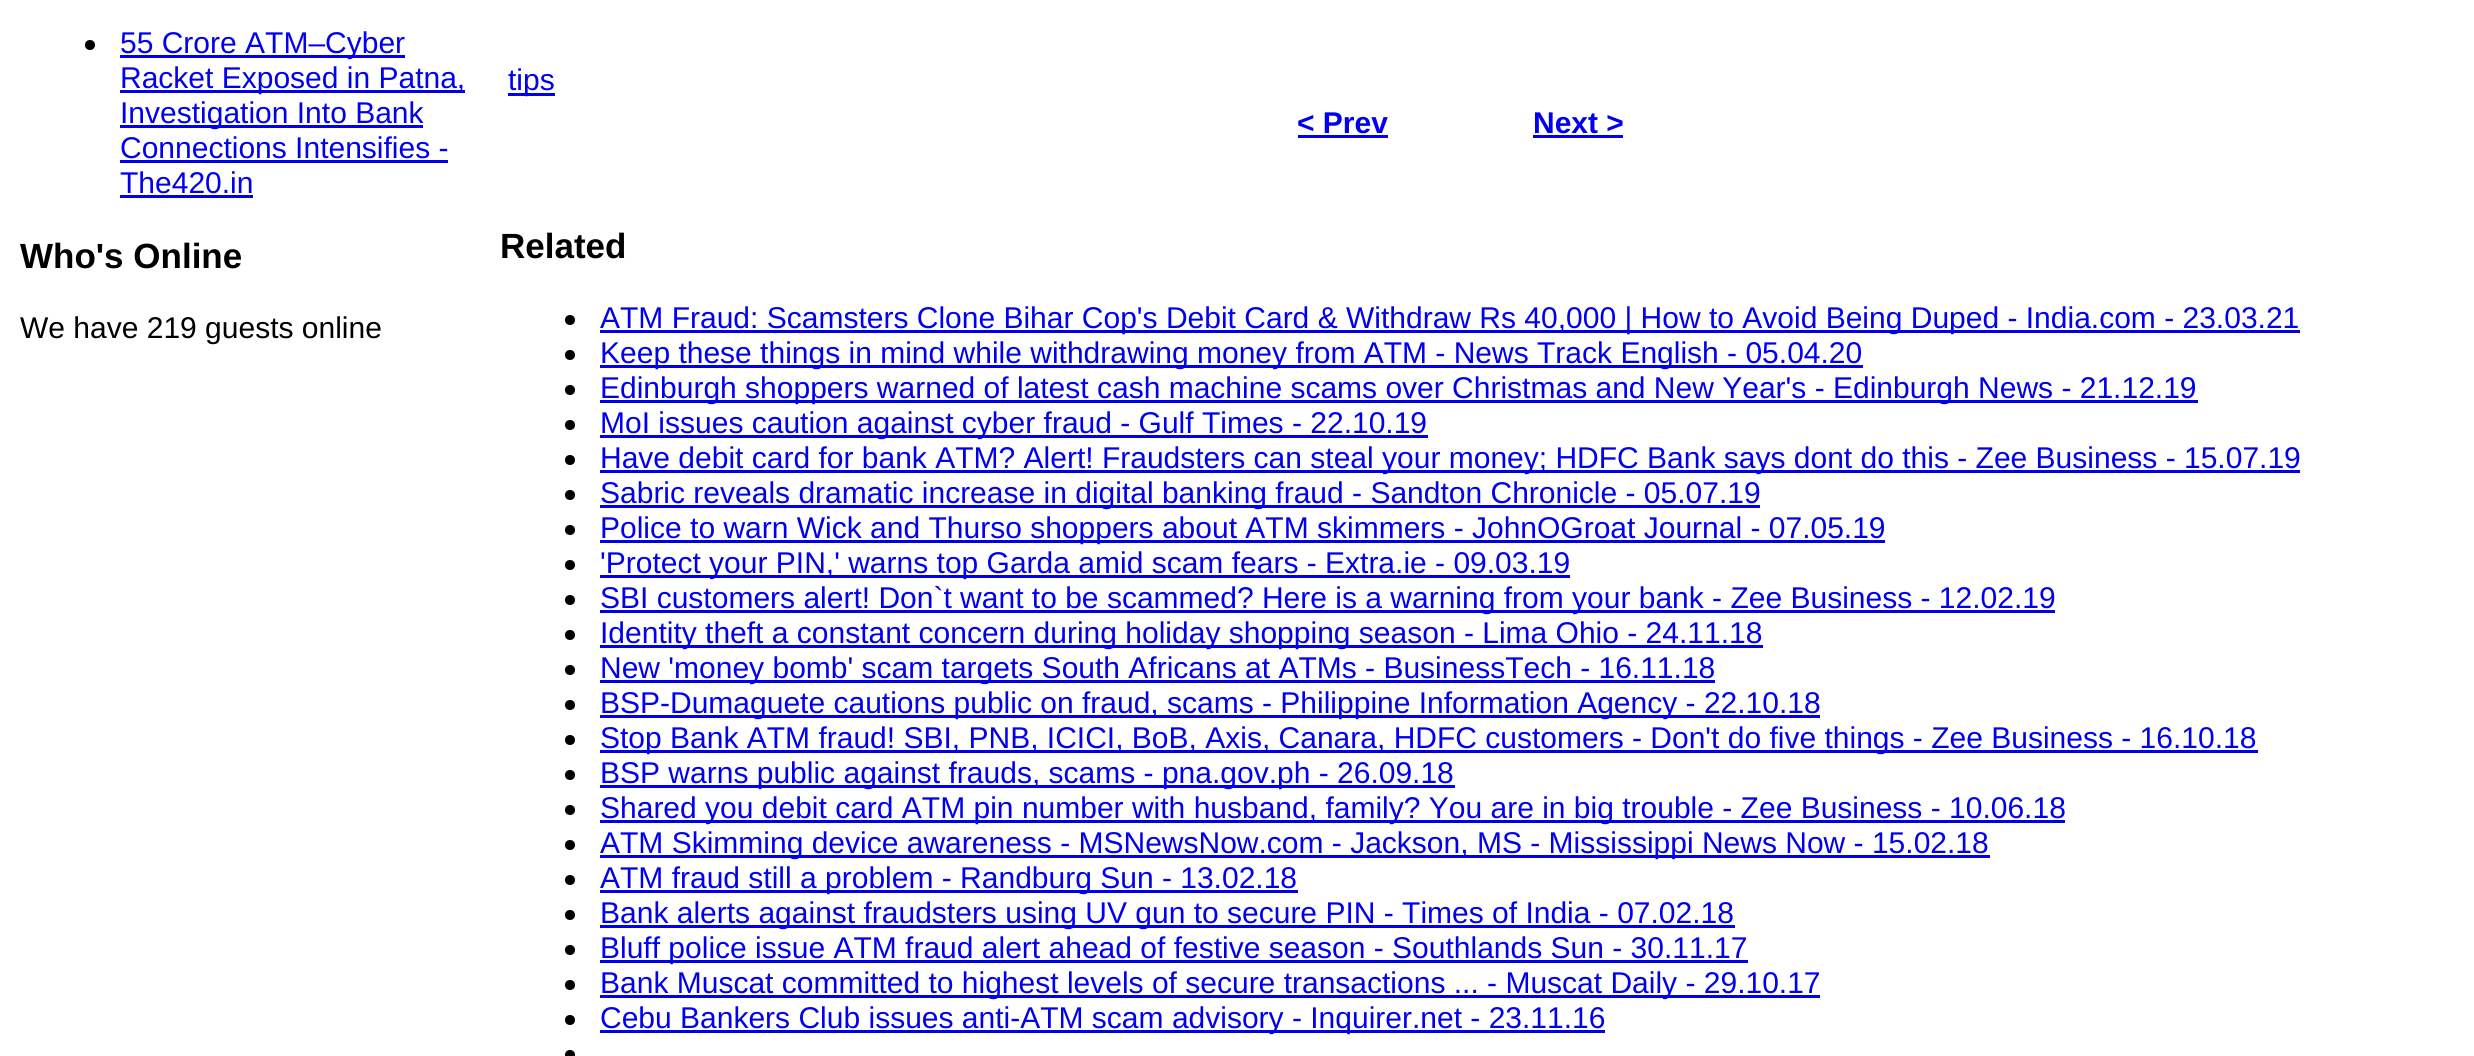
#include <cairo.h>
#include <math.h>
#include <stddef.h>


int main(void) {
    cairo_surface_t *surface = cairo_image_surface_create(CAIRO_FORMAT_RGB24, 2474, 1056);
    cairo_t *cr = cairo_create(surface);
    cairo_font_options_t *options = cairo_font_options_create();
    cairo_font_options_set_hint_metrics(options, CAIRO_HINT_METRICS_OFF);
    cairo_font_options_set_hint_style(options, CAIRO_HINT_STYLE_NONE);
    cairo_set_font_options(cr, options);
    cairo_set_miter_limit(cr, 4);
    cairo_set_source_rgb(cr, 1, 1, 1);
    cairo_paint(cr);
    cairo_set_source_rgb(cr, 0, 0, 0);
    cairo_arc(cr, 90, 45, 5, 0, 2 * M_PI);
    cairo_fill(cr);
    cairo_set_source_rgb(cr, 0, 0, 0.933);
    cairo_rectangle(cr, 120, 55, 285, 3);
    cairo_fill(cr);
    cairo_select_font_face(cr, "Liberation Sans", CAIRO_FONT_SLANT_NORMAL, CAIRO_FONT_WEIGHT_NORMAL);
    cairo_set_font_size(cr, 30);
    cairo_move_to(cr, 120, 53);
    cairo_show_text(cr, "55 Crore ATM–Cyber");
    cairo_rectangle(cr, 120, 90, 345, 3);
    cairo_fill(cr);
    cairo_move_to(cr, 120, 88);
    cairo_show_text(cr, "Racket Exposed in Patna,");
    cairo_rectangle(cr, 120, 125, 303, 3);
    cairo_fill(cr);
    cairo_move_to(cr, 120, 123);
    cairo_show_text(cr, "Investigation Into Bank");
    cairo_move_to(cr, 120, 158);
    cairo_show_text(cr, "Connections Intensifies -");
    cairo_rectangle(cr, 120, 160, 328, 3);
    cairo_fill(cr);
    cairo_move_to(cr, 120, 193);
    cairo_show_text(cr, "The420.in");
    cairo_rectangle(cr, 120, 195, 133, 3);
    cairo_fill(cr);
    cairo_select_font_face(cr, "Liberation Sans", CAIRO_FONT_SLANT_NORMAL, CAIRO_FONT_WEIGHT_BOLD);
    cairo_set_font_size(cr, 35);
    cairo_set_source_rgb(cr, 0, 0, 0);
    cairo_move_to(cr, 20, 268);
    cairo_show_text(cr, "Who's Online");
    cairo_select_font_face(cr, "Liberation Sans", CAIRO_FONT_SLANT_NORMAL, CAIRO_FONT_WEIGHT_NORMAL);
    cairo_set_font_size(cr, 30);
    cairo_move_to(cr, 20, 338);
    cairo_show_text(cr, "We have 219 guests online");
    cairo_set_source_rgb(cr, 0, 0, 0.933);
    cairo_rectangle(cr, 508, 93, 47, 3);
    cairo_fill(cr);
    cairo_move_to(cr, 508, 90);
    cairo_show_text(cr, "tips");
    cairo_select_font_face(cr, "Liberation Sans", CAIRO_FONT_SLANT_NORMAL, CAIRO_FONT_WEIGHT_BOLD);
    cairo_move_to(cr, 1297, 133);
    cairo_show_text(cr, "< Prev");
    cairo_rectangle(cr, 1298, 135, 90, 3);
    cairo_fill(cr);
    cairo_move_to(cr, 1533, 133);
    cairo_show_text(cr, "Next >");
    cairo_rectangle(cr, 1533, 135, 90, 3);
    cairo_fill(cr);
    cairo_set_font_size(cr, 35);
    cairo_set_source_rgb(cr, 0, 0, 0);
    cairo_move_to(cr, 500, 258);
    cairo_show_text(cr, "Related");
    cairo_new_path(cr);
    cairo_arc(cr, 570, 320, 5, 0, 2 * M_PI);
    cairo_fill(cr);
    cairo_set_source_rgb(cr, 0, 0, 0.933);
    cairo_rectangle(cr, 600, 330, 1700, 3);
    cairo_fill(cr);
    cairo_select_font_face(cr, "Liberation Sans", CAIRO_FONT_SLANT_NORMAL, CAIRO_FONT_WEIGHT_NORMAL);
    cairo_set_font_size(cr, 30);
    cairo_move_to(cr, 600, 328);
    cairo_show_text(cr, "ATM Fraud: Scamsters Clone Bihar Cop's Debit Card & Withdraw Rs 40,000 | How to Avoid Being Duped - India.com - 23.03.21");
    cairo_set_source_rgb(cr, 0, 0, 0);
    cairo_new_path(cr);
    cairo_arc(cr, 570, 355, 5, 0, 2 * M_PI);
    cairo_fill(cr);
    cairo_set_source_rgb(cr, 0, 0, 0.933);
    cairo_rectangle(cr, 600, 365, 1263, 3);
    cairo_fill(cr);
    cairo_move_to(cr, 600, 363);
    cairo_show_text(cr, "Keep these things in mind while withdrawing money from ATM - News Track English - 05.04.20");
    cairo_set_source_rgb(cr, 0, 0, 0);
    cairo_new_path(cr);
    cairo_arc(cr, 570, 390, 5, 0, 2 * M_PI);
    cairo_fill(cr);
    cairo_set_source_rgb(cr, 0, 0, 0.933);
    cairo_rectangle(cr, 600, 400, 1598, 3);
    cairo_fill(cr);
    cairo_move_to(cr, 600, 398);
    cairo_show_text(cr, "Edinburgh shoppers warned of latest cash machine scams over Christmas and New Year's - Edinburgh News - 21.12.19");
    cairo_set_source_rgb(cr, 0, 0, 0);
    cairo_new_path(cr);
    cairo_arc(cr, 570, 425, 5, 0, 2 * M_PI);
    cairo_fill(cr);
    cairo_set_source_rgb(cr, 0, 0, 0.933);
    cairo_rectangle(cr, 600, 435, 828, 3);
    cairo_fill(cr);
    cairo_move_to(cr, 600, 433);
    cairo_show_text(cr, "MoI issues caution against cyber fraud - Gulf Times - 22.10.19");
    cairo_set_source_rgb(cr, 0, 0, 0);
    cairo_new_path(cr);
    cairo_arc(cr, 570, 460, 5, 0, 2 * M_PI);
    cairo_fill(cr);
    cairo_set_source_rgb(cr, 0, 0, 0.933);
    cairo_rectangle(cr, 600, 470, 1700, 3);
    cairo_fill(cr);
    cairo_move_to(cr, 600, 468);
    cairo_show_text(cr, "Have debit card for bank ATM? Alert! Fraudsters can steal your money; HDFC Bank says dont do this - Zee Business - 15.07.19");
    cairo_set_source_rgb(cr, 0, 0, 0);
    cairo_new_path(cr);
    cairo_arc(cr, 570, 495, 5, 0, 2 * M_PI);
    cairo_fill(cr);
    cairo_set_source_rgb(cr, 0, 0, 0.933);
    cairo_rectangle(cr, 600, 505, 1160, 3);
    cairo_fill(cr);
    cairo_move_to(cr, 600, 503);
    cairo_show_text(cr, "Sabric reveals dramatic increase in digital banking fraud - Sandton Chronicle - 05.07.19");
    cairo_set_source_rgb(cr, 0, 0, 0);
    cairo_new_path(cr);
    cairo_arc(cr, 570, 530, 5, 0, 2 * M_PI);
    cairo_fill(cr);
    cairo_set_source_rgb(cr, 0, 0, 0.933);
    cairo_rectangle(cr, 600, 540, 1285, 3);
    cairo_fill(cr);
    cairo_move_to(cr, 600, 538);
    cairo_show_text(cr, "Police to warn Wick and Thurso shoppers about ATM skimmers - JohnOGroat Journal - 07.05.19");
    cairo_set_source_rgb(cr, 0, 0, 0);
    cairo_new_path(cr);
    cairo_arc(cr, 570, 565, 5, 0, 2 * M_PI);
    cairo_fill(cr);
    cairo_set_source_rgb(cr, 0, 0, 0.933);
    cairo_rectangle(cr, 600, 575, 970, 3);
    cairo_fill(cr);
    cairo_move_to(cr, 600, 573);
    cairo_show_text(cr, "'Protect your PIN,' warns top Garda amid scam fears - Extra.ie - 09.03.19");
    cairo_set_source_rgb(cr, 0, 0, 0);
    cairo_new_path(cr);
    cairo_arc(cr, 570, 600, 5, 0, 2 * M_PI);
    cairo_fill(cr);
    cairo_set_source_rgb(cr, 0, 0, 0.933);
    cairo_rectangle(cr, 600, 610, 1455, 3);
    cairo_fill(cr);
    cairo_move_to(cr, 600, 608);
    cairo_show_text(cr, "SBI customers alert! Don`t want to be scammed? Here is a warning from your bank - Zee Business - 12.02.19");
    cairo_set_source_rgb(cr, 0, 0, 0);
    cairo_new_path(cr);
    cairo_arc(cr, 570, 635, 5, 0, 2 * M_PI);
    cairo_fill(cr);
    cairo_set_source_rgb(cr, 0, 0, 0.933);
    cairo_rectangle(cr, 600, 645, 1163, 3);
    cairo_fill(cr);
    cairo_move_to(cr, 600, 643);
    cairo_show_text(cr, "Identity theft a constant concern during holiday shopping season - Lima Ohio - 24.11.18");
    cairo_set_source_rgb(cr, 0, 0, 0);
    cairo_new_path(cr);
    cairo_arc(cr, 570, 670, 5, 0, 2 * M_PI);
    cairo_fill(cr);
    cairo_set_source_rgb(cr, 0, 0, 0.933);
    cairo_rectangle(cr, 600, 680, 1115, 3);
    cairo_fill(cr);
    cairo_move_to(cr, 600, 678);
    cairo_show_text(cr, "New 'money bomb' scam targets South Africans at ATMs - BusinessTech - 16.11.18");
    cairo_set_source_rgb(cr, 0, 0, 0);
    cairo_new_path(cr);
    cairo_arc(cr, 570, 705, 5, 0, 2 * M_PI);
    cairo_fill(cr);
    cairo_set_source_rgb(cr, 0, 0, 0.933);
    cairo_rectangle(cr, 600, 715, 1220, 3);
    cairo_fill(cr);
    cairo_move_to(cr, 600, 713);
    cairo_show_text(cr, "BSP-Dumaguete cautions public on fraud, scams - Philippine Information Agency - 22.10.18");
    cairo_set_source_rgb(cr, 0, 0, 0);
    cairo_new_path(cr);
    cairo_arc(cr, 570, 740, 5, 0, 2 * M_PI);
    cairo_fill(cr);
    cairo_set_source_rgb(cr, 0, 0, 0.933);
    cairo_rectangle(cr, 600, 750, 1658, 3);
    cairo_fill(cr);
    cairo_move_to(cr, 600, 748);
    cairo_show_text(cr, "Stop Bank ATM fraud! SBI, PNB, ICICI, BoB, Axis, Canara, HDFC customers - Don't do five things - Zee Business - 16.10.18");
    cairo_set_source_rgb(cr, 0, 0, 0);
    cairo_new_path(cr);
    cairo_arc(cr, 570, 775, 5, 0, 2 * M_PI);
    cairo_fill(cr);
    cairo_set_source_rgb(cr, 0, 0, 0.933);
    cairo_rectangle(cr, 600, 785, 855, 3);
    cairo_fill(cr);
    cairo_move_to(cr, 600, 783);
    cairo_show_text(cr, "BSP warns public against frauds, scams - pna.gov.ph - 26.09.18");
    cairo_set_source_rgb(cr, 0, 0, 0);
    cairo_new_path(cr);
    cairo_arc(cr, 570, 810, 5, 0, 2 * M_PI);
    cairo_fill(cr);
    cairo_set_source_rgb(cr, 0, 0, 0.933);
    cairo_rectangle(cr, 600, 820, 1465, 3);
    cairo_fill(cr);
    cairo_move_to(cr, 600, 818);
    cairo_show_text(cr, "Shared you debit card ATM pin number with husband, family? You are in big trouble - Zee Business - 10.06.18");
    cairo_set_source_rgb(cr, 0, 0, 0);
    cairo_new_path(cr);
    cairo_arc(cr, 570, 845, 5, 0, 2 * M_PI);
    cairo_fill(cr);
    cairo_set_source_rgb(cr, 0, 0, 0.933);
    cairo_rectangle(cr, 600, 855, 1390, 3);
    cairo_fill(cr);
    cairo_move_to(cr, 600, 853);
    cairo_show_text(cr, "ATM Skimming device awareness - MSNewsNow.com - Jackson, MS - Mississippi News Now - 15.02.18");
    cairo_set_source_rgb(cr, 0, 0, 0);
    cairo_new_path(cr);
    cairo_arc(cr, 570, 880, 5, 0, 2 * M_PI);
    cairo_fill(cr);
    cairo_set_source_rgb(cr, 0, 0, 0.933);
    cairo_rectangle(cr, 600, 890, 698, 3);
    cairo_fill(cr);
    cairo_move_to(cr, 600, 888);
    cairo_show_text(cr, "ATM fraud still a problem - Randburg Sun - 13.02.18");
    cairo_set_source_rgb(cr, 0, 0, 0);
    cairo_new_path(cr);
    cairo_arc(cr, 570, 915, 5, 0, 2 * M_PI);
    cairo_fill(cr);
    cairo_set_source_rgb(cr, 0, 0, 0.933);
    cairo_rectangle(cr, 600, 925, 1135, 3);
    cairo_fill(cr);
    cairo_move_to(cr, 600, 923);
    cairo_show_text(cr, "Bank alerts against fraudsters using UV gun to secure PIN - Times of India - 07.02.18");
    cairo_set_source_rgb(cr, 0, 0, 0);
    cairo_new_path(cr);
    cairo_arc(cr, 570, 950, 5, 0, 2 * M_PI);
    cairo_fill(cr);
    cairo_set_source_rgb(cr, 0, 0, 0.933);
    cairo_rectangle(cr, 600, 960, 1148, 3);
    cairo_fill(cr);
    cairo_move_to(cr, 600, 958);
    cairo_show_text(cr, "Bluff police issue ATM fraud alert ahead of festive season - Southlands Sun - 30.11.17");
    cairo_set_source_rgb(cr, 0, 0, 0);
    cairo_new_path(cr);
    cairo_arc(cr, 570, 985, 5, 0, 2 * M_PI);
    cairo_fill(cr);
    cairo_set_source_rgb(cr, 0, 0, 0.933);
    cairo_rectangle(cr, 600, 995, 1220, 3);
    cairo_fill(cr);
    cairo_move_to(cr, 600, 993);
    cairo_show_text(cr, "Bank Muscat committed to highest levels of secure transactions ... - Muscat Daily - 29.10.17");
    cairo_set_source_rgb(cr, 0, 0, 0);
    cairo_new_path(cr);
    cairo_arc(cr, 570, 1020, 5, 0, 2 * M_PI);
    cairo_fill(cr);
    cairo_set_source_rgb(cr, 0, 0, 0.933);
    cairo_rectangle(cr, 600, 1030, 1005, 3);
    cairo_fill(cr);
    cairo_move_to(cr, 600, 1028);
    cairo_show_text(cr, "Cebu Bankers Club issues anti-ATM scam advisory - Inquirer.net - 23.11.16");
    cairo_set_source_rgb(cr, 0, 0, 0);
    cairo_new_path(cr);
    cairo_arc(cr, 570, 1055, 5, 0, 2 * M_PI);
    cairo_fill(cr);
    cairo_surface_write_to_png(surface, "page.png");
    cairo_font_options_destroy(options);
    cairo_destroy(cr);
    cairo_surface_destroy(surface);
    return 0;
}
